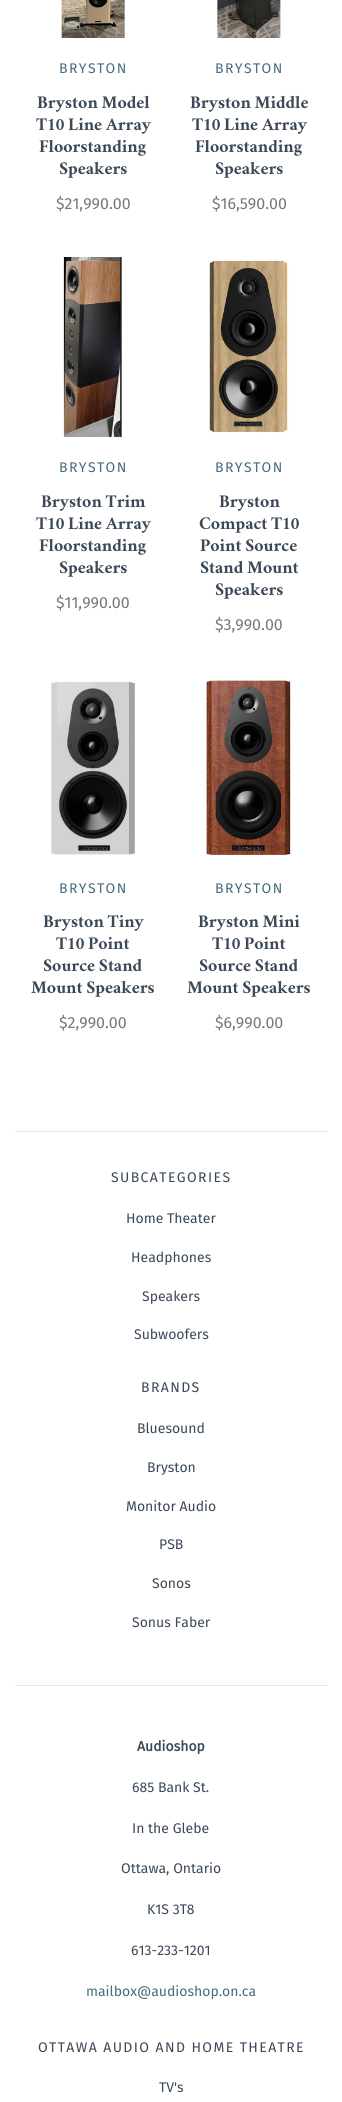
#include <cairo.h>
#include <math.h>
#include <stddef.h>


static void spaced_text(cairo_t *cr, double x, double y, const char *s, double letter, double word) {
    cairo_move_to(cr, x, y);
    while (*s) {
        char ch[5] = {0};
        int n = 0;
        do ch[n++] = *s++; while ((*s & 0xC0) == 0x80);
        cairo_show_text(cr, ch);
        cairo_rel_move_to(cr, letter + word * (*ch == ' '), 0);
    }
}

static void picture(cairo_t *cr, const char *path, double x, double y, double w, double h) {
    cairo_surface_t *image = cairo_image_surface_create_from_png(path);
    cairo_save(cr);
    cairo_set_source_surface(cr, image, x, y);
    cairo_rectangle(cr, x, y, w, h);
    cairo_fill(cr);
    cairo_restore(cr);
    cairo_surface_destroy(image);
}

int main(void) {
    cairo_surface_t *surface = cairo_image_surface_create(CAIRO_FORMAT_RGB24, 342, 2102);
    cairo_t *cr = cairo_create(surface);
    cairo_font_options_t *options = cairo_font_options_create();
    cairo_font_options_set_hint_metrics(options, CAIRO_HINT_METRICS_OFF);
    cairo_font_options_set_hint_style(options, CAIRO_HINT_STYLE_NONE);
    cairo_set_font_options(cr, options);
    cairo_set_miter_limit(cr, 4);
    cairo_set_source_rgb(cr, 1, 1, 1);
    cairo_paint(cr);
    picture(cr, "img1.png", 61, 0, 64, 38);
    cairo_select_font_face(cr, "Fira Sans", CAIRO_FONT_SLANT_NORMAL, CAIRO_FONT_WEIGHT_NORMAL);
    cairo_set_font_size(cr, 14);
    cairo_set_source_rgb(cr, 0.275, 0.424, 0.494);
    spaced_text(cr, 59, 73, "BRYSTON", 1.4, 0);
    cairo_select_font_face(cr, "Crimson", CAIRO_FONT_SLANT_NORMAL, CAIRO_FONT_WEIGHT_BOLD);
    cairo_set_font_size(cr, 16);
    cairo_set_source_rgb(cr, 0.231, 0.282, 0.345);
    cairo_move_to(cr, 37, 108);
    cairo_show_text(cr, "Bryston Model");
    cairo_move_to(cr, 36, 130);
    cairo_show_text(cr, "T10 Line Array");
    cairo_move_to(cr, 39, 152);
    cairo_show_text(cr, "Floorstanding");
    cairo_move_to(cr, 59, 174);
    cairo_show_text(cr, "Speakers");
    cairo_select_font_face(cr, "Fira Sans", CAIRO_FONT_SLANT_NORMAL, CAIRO_FONT_WEIGHT_NORMAL);
    cairo_set_source_rgb(cr, 0.467, 0.467, 0.467);
    cairo_move_to(cr, 56, 209);
    cairo_show_text(cr, "$21,990.00");
    picture(cr, "img2.png", 217, 0, 64, 38);
    cairo_set_font_size(cr, 14);
    cairo_set_source_rgb(cr, 0.275, 0.424, 0.494);
    spaced_text(cr, 215, 73, "BRYSTON", 1.4, 0);
    cairo_select_font_face(cr, "Crimson", CAIRO_FONT_SLANT_NORMAL, CAIRO_FONT_WEIGHT_BOLD);
    cairo_set_font_size(cr, 16);
    cairo_set_source_rgb(cr, 0.231, 0.282, 0.345);
    cairo_move_to(cr, 190, 108);
    cairo_show_text(cr, "Bryston Middle");
    cairo_move_to(cr, 192, 130);
    cairo_show_text(cr, "T10 Line Array");
    cairo_move_to(cr, 195, 152);
    cairo_show_text(cr, "Floorstanding");
    cairo_move_to(cr, 215, 174);
    cairo_show_text(cr, "Speakers");
    cairo_select_font_face(cr, "Fira Sans", CAIRO_FONT_SLANT_NORMAL, CAIRO_FONT_WEIGHT_NORMAL);
    cairo_set_source_rgb(cr, 0.467, 0.467, 0.467);
    cairo_move_to(cr, 212, 209);
    cairo_show_text(cr, "$16,590.00");
    picture(cr, "img3.png", 63, 257, 59, 180);
    cairo_set_font_size(cr, 14);
    cairo_set_source_rgb(cr, 0.275, 0.424, 0.494);
    spaced_text(cr, 59, 472, "BRYSTON", 1.4, 0);
    cairo_select_font_face(cr, "Crimson", CAIRO_FONT_SLANT_NORMAL, CAIRO_FONT_WEIGHT_BOLD);
    cairo_set_font_size(cr, 16);
    cairo_set_source_rgb(cr, 0.231, 0.282, 0.345);
    cairo_move_to(cr, 41, 507);
    cairo_show_text(cr, "Bryston Trim");
    cairo_move_to(cr, 36, 529);
    cairo_show_text(cr, "T10 Line Array");
    cairo_move_to(cr, 39, 551);
    cairo_show_text(cr, "Floorstanding");
    cairo_move_to(cr, 59, 573);
    cairo_show_text(cr, "Speakers");
    cairo_select_font_face(cr, "Fira Sans", CAIRO_FONT_SLANT_NORMAL, CAIRO_FONT_WEIGHT_NORMAL);
    cairo_set_source_rgb(cr, 0.467, 0.467, 0.467);
    cairo_move_to(cr, 56, 608);
    cairo_show_text(cr, "$11,990.00");
    picture(cr, "img4.png", 209, 260, 80, 173);
    cairo_set_font_size(cr, 14);
    cairo_set_source_rgb(cr, 0.275, 0.424, 0.494);
    spaced_text(cr, 215, 472, "BRYSTON", 1.4, 0);
    cairo_select_font_face(cr, "Crimson", CAIRO_FONT_SLANT_NORMAL, CAIRO_FONT_WEIGHT_BOLD);
    cairo_set_font_size(cr, 16);
    cairo_set_source_rgb(cr, 0.231, 0.282, 0.345);
    cairo_move_to(cr, 219, 507);
    cairo_show_text(cr, "Bryston");
    cairo_move_to(cr, 199, 529);
    cairo_show_text(cr, "Compact T10");
    cairo_move_to(cr, 200, 551);
    cairo_show_text(cr, "Point Source");
    cairo_move_to(cr, 200, 573);
    cairo_show_text(cr, "Stand Mount");
    cairo_move_to(cr, 215, 595);
    cairo_show_text(cr, "Speakers");
    cairo_select_font_face(cr, "Fira Sans", CAIRO_FONT_SLANT_NORMAL, CAIRO_FONT_WEIGHT_NORMAL);
    cairo_set_source_rgb(cr, 0.467, 0.467, 0.467);
    cairo_move_to(cr, 215, 630);
    cairo_show_text(cr, "$3,990.00");
    picture(cr, "img5.png", 51, 681, 84, 174);
    cairo_set_font_size(cr, 14);
    cairo_set_source_rgb(cr, 0.275, 0.424, 0.494);
    spaced_text(cr, 59, 893, "BRYSTON", 1.4, 0);
    cairo_select_font_face(cr, "Crimson", CAIRO_FONT_SLANT_NORMAL, CAIRO_FONT_WEIGHT_BOLD);
    cairo_set_font_size(cr, 16);
    cairo_set_source_rgb(cr, 0.231, 0.282, 0.345);
    cairo_move_to(cr, 43, 927);
    cairo_show_text(cr, "Bryston Tiny");
    cairo_move_to(cr, 56, 949);
    cairo_show_text(cr, "T10 Point");
    cairo_move_to(cr, 43, 971);
    cairo_show_text(cr, "Source Stand");
    cairo_move_to(cr, 31, 993);
    cairo_show_text(cr, "Mount Speakers");
    cairo_select_font_face(cr, "Fira Sans", CAIRO_FONT_SLANT_NORMAL, CAIRO_FONT_WEIGHT_NORMAL);
    cairo_set_source_rgb(cr, 0.467, 0.467, 0.467);
    cairo_move_to(cr, 59, 1028);
    cairo_show_text(cr, "$2,990.00");
    picture(cr, "img6.png", 206, 680, 85, 176);
    cairo_set_font_size(cr, 14);
    cairo_set_source_rgb(cr, 0.275, 0.424, 0.494);
    spaced_text(cr, 215, 893, "BRYSTON", 1.4, 0);
    cairo_select_font_face(cr, "Crimson", CAIRO_FONT_SLANT_NORMAL, CAIRO_FONT_WEIGHT_BOLD);
    cairo_set_font_size(cr, 16);
    cairo_set_source_rgb(cr, 0.231, 0.282, 0.345);
    cairo_move_to(cr, 198, 927);
    cairo_show_text(cr, "Bryston Mini");
    cairo_move_to(cr, 212, 949);
    cairo_show_text(cr, "T10 Point");
    cairo_move_to(cr, 199, 971);
    cairo_show_text(cr, "Source Stand");
    cairo_move_to(cr, 187, 993);
    cairo_show_text(cr, "Mount Speakers");
    cairo_select_font_face(cr, "Fira Sans", CAIRO_FONT_SLANT_NORMAL, CAIRO_FONT_WEIGHT_NORMAL);
    cairo_set_source_rgb(cr, 0.467, 0.467, 0.467);
    cairo_move_to(cr, 215, 1028);
    cairo_show_text(cr, "$6,990.00");
    cairo_set_source_rgb(cr, 0.898, 0.898, 0.898);
    cairo_rectangle(cr, 15, 1131, 312, 1);
    cairo_fill(cr);
    cairo_set_font_size(cr, 14);
    cairo_set_source_rgb(cr, 0.231, 0.282, 0.345);
    spaced_text(cr, 111, 1182, "SUBCATEGORIES", 1.4, 0);
    cairo_move_to(cr, 126, 1223);
    cairo_show_text(cr, "Home Theater");
    cairo_move_to(cr, 131, 1262);
    cairo_show_text(cr, "Headphones");
    cairo_move_to(cr, 142, 1301);
    cairo_show_text(cr, "Speakers");
    cairo_move_to(cr, 134, 1339);
    cairo_show_text(cr, "Subwoofers");
    spaced_text(cr, 141, 1392, "BRANDS", 1.4, 0);
    cairo_move_to(cr, 137, 1433);
    cairo_show_text(cr, "Bluesound");
    cairo_move_to(cr, 147, 1472);
    cairo_show_text(cr, "Bryston");
    cairo_move_to(cr, 126, 1511);
    cairo_show_text(cr, "Monitor Audio");
    cairo_move_to(cr, 159, 1549);
    cairo_show_text(cr, "PSB");
    cairo_move_to(cr, 152, 1588);
    cairo_show_text(cr, "Sonos");
    cairo_move_to(cr, 132, 1627);
    cairo_show_text(cr, "Sonus Faber");
    cairo_set_source_rgb(cr, 0.898, 0.898, 0.898);
    cairo_rectangle(cr, 15, 1685, 312, 1);
    cairo_fill(cr);
    cairo_select_font_face(cr, "Fira Sans", CAIRO_FONT_SLANT_NORMAL, CAIRO_FONT_WEIGHT_BOLD);
    cairo_set_source_rgb(cr, 0.231, 0.282, 0.345);
    cairo_move_to(cr, 137, 1751);
    cairo_show_text(cr, "Audioshop");
    cairo_select_font_face(cr, "Fira Sans", CAIRO_FONT_SLANT_NORMAL, CAIRO_FONT_WEIGHT_NORMAL);
    cairo_move_to(cr, 132, 1792);
    cairo_show_text(cr, "685 Bank St.");
    cairo_move_to(cr, 132, 1833);
    cairo_show_text(cr, "In the Glebe");
    cairo_move_to(cr, 121, 1873);
    cairo_show_text(cr, "Ottawa, Ontario");
    cairo_move_to(cr, 147, 1914);
    cairo_show_text(cr, "K1S 3T8");
    cairo_move_to(cr, 131, 1955);
    cairo_show_text(cr, "613-233-1201");
    cairo_set_source_rgb(cr, 0.275, 0.424, 0.494);
    cairo_move_to(cr, 86, 1996);
    cairo_show_text(cr, "mailbox@audioshop.on.ca");
    cairo_set_source_rgb(cr, 0.231, 0.282, 0.345);
    spaced_text(cr, 38, 2052, "OTTAWA AUDIO AND HOME THEATRE", 1.4, 0);
    cairo_move_to(cr, 159, 2092);
    cairo_show_text(cr, "TV's");
    cairo_surface_write_to_png(surface, "page.png");
    cairo_font_options_destroy(options);
    cairo_destroy(cr);
    cairo_surface_destroy(surface);
    return 0;
}
